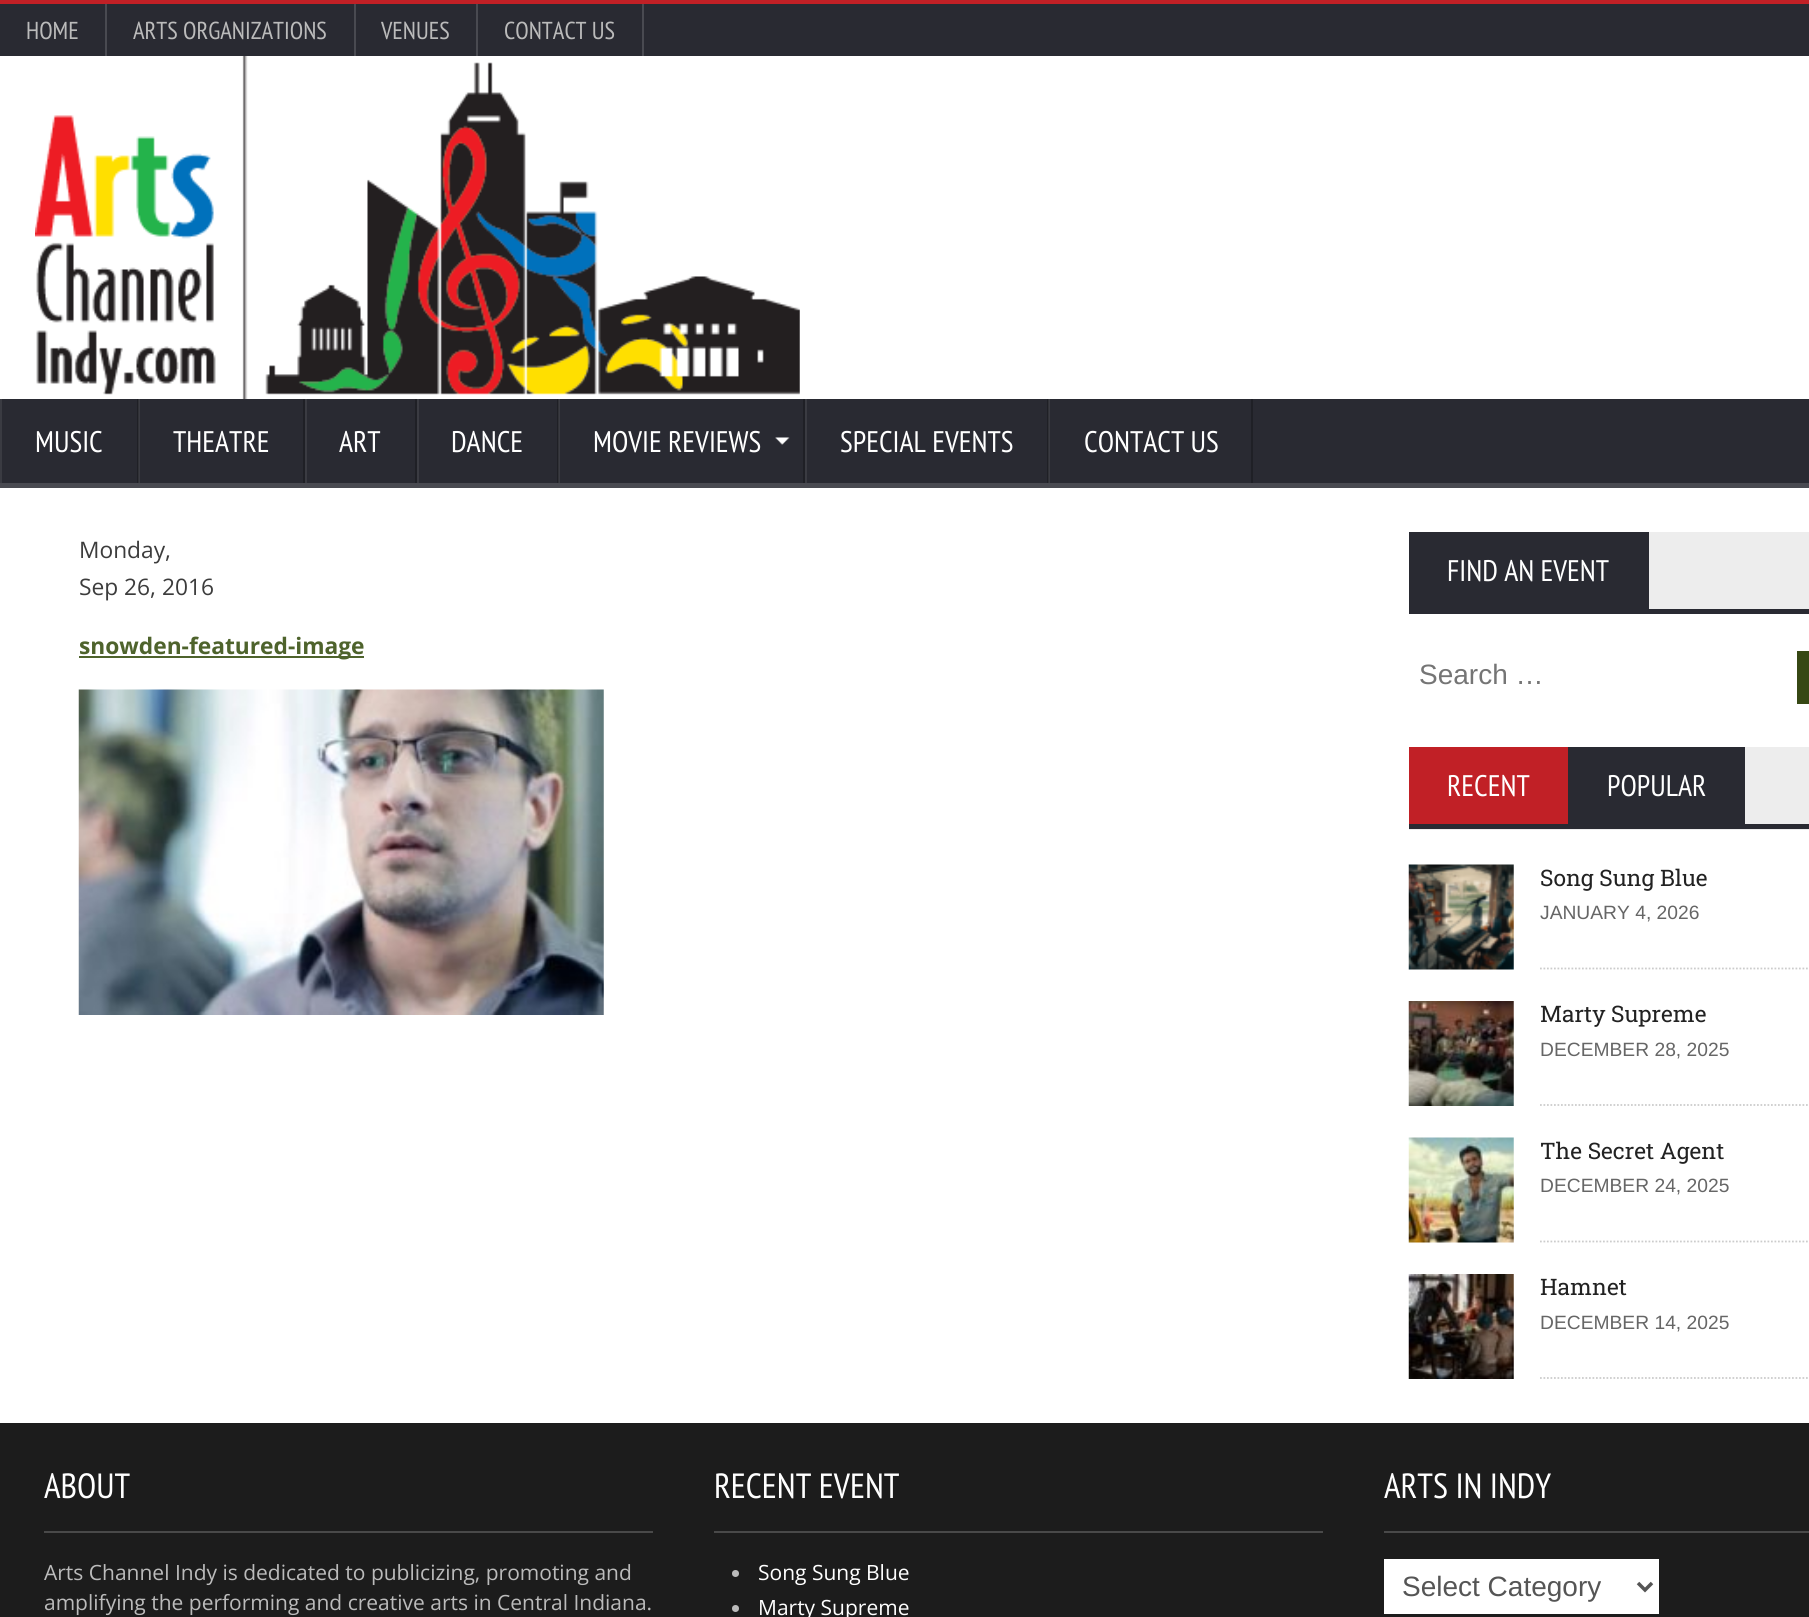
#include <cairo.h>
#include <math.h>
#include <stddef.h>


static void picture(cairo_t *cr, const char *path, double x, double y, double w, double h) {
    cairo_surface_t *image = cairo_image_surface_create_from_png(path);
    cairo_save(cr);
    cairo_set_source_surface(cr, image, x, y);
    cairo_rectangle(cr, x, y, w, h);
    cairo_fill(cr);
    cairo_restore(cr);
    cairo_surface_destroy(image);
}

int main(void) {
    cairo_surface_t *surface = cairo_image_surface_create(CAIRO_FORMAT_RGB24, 1809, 1617);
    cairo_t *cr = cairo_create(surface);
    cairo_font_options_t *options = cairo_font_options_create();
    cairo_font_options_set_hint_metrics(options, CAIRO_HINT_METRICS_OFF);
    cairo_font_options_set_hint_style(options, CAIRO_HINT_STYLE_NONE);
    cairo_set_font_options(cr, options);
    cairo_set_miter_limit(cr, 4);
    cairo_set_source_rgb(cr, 1, 1, 1);
    cairo_paint(cr);
    cairo_set_source_rgb(cr, 0.161, 0.165, 0.196);
    cairo_rectangle(cr, 0, 4, 1809, 52);
    cairo_fill(cr);
    cairo_set_source_rgb(cr, 0.757, 0.125, 0.149);
    cairo_rectangle(cr, 0, 0, 1809, 4);
    cairo_fill(cr);
    cairo_set_source_rgb(cr, 0.286, 0.29, 0.318);
    cairo_rectangle(cr, 105, 4, 2, 52);
    cairo_fill(cr);
    cairo_select_font_face(cr, "PT Sans Narrow", CAIRO_FONT_SLANT_NORMAL, CAIRO_FONT_WEIGHT_NORMAL);
    cairo_set_font_size(cr, 24.5);
    cairo_set_source_rgb(cr, 0.733, 0.733, 0.733);
    cairo_move_to(cr, 26, 39);
    cairo_show_text(cr, "HOME");
    cairo_set_source_rgb(cr, 0.286, 0.29, 0.318);
    cairo_rectangle(cr, 354, 4, 2, 52);
    cairo_fill(cr);
    cairo_set_source_rgb(cr, 0.733, 0.733, 0.733);
    cairo_move_to(cr, 133, 39);
    cairo_show_text(cr, "ARTS ORGANIZATIONS");
    cairo_set_source_rgb(cr, 0.286, 0.29, 0.318);
    cairo_rectangle(cr, 476, 4, 2, 52);
    cairo_fill(cr);
    cairo_set_source_rgb(cr, 0.733, 0.733, 0.733);
    cairo_move_to(cr, 381, 39);
    cairo_show_text(cr, "VENUES");
    cairo_set_source_rgb(cr, 0.286, 0.29, 0.318);
    cairo_rectangle(cr, 642, 4, 2, 52);
    cairo_fill(cr);
    cairo_set_source_rgb(cr, 0.733, 0.733, 0.733);
    cairo_move_to(cr, 504, 39);
    cairo_show_text(cr, "CONTACT US");
    picture(cr, "img1.png", 35, 56, 765, 343);
    cairo_set_source_rgb(cr, 0.161, 0.165, 0.196);
    cairo_rectangle(cr, 2, 399, 1807, 84);
    cairo_fill(cr);
    cairo_set_source_rgb(cr, 0.227, 0.231, 0.259);
    cairo_rectangle(cr, 1049, 399, 1, 84);
    cairo_fill(cr);
    cairo_rectangle(cr, 559, 399, 1, 84);
    cairo_fill(cr);
    cairo_rectangle(cr, 139, 399, 1, 84);
    cairo_fill(cr);
    cairo_set_source_rgb(cr, 0.286, 0.29, 0.318);
    cairo_rectangle(cr, 0, 483, 1809, 5);
    cairo_fill(cr);
    cairo_set_source_rgb(cr, 0.122, 0.125, 0.149);
    cairo_rectangle(cr, 137, 399, 1, 84);
    cairo_fill(cr);
    cairo_set_source_rgb(cr, 0.192, 0.196, 0.216);
    cairo_rectangle(cr, 138, 399, 1, 84);
    cairo_fill(cr);
    cairo_set_source_rgb(cr, 0.227, 0.231, 0.259);
    cairo_rectangle(cr, 0, 399, 2, 84);
    cairo_fill(cr);
    cairo_set_font_size(cr, 29.75);
    cairo_set_source_rgb(cr, 1, 1, 1);
    cairo_move_to(cr, 35, 452);
    cairo_show_text(cr, "MUSIC");
    cairo_set_source_rgb(cr, 0.122, 0.125, 0.149);
    cairo_rectangle(cr, 303, 399, 2, 84);
    cairo_fill(cr);
    cairo_set_source_rgb(cr, 1, 1, 1);
    cairo_move_to(cr, 173, 452);
    cairo_show_text(cr, "THEATRE");
    cairo_set_source_rgb(cr, 0.122, 0.125, 0.149);
    cairo_rectangle(cr, 415, 399, 2, 84);
    cairo_fill(cr);
    cairo_set_source_rgb(cr, 0.227, 0.231, 0.259);
    cairo_rectangle(cr, 305, 399, 2, 84);
    cairo_fill(cr);
    cairo_set_source_rgb(cr, 1, 1, 1);
    cairo_move_to(cr, 339, 452);
    cairo_show_text(cr, "ART");
    cairo_set_source_rgb(cr, 0.122, 0.125, 0.149);
    cairo_rectangle(cr, 557, 399, 1, 84);
    cairo_fill(cr);
    cairo_set_source_rgb(cr, 0.192, 0.196, 0.216);
    cairo_rectangle(cr, 558, 399, 1, 84);
    cairo_fill(cr);
    cairo_set_source_rgb(cr, 0.227, 0.231, 0.259);
    cairo_rectangle(cr, 417, 399, 2, 84);
    cairo_fill(cr);
    cairo_set_source_rgb(cr, 1, 1, 1);
    cairo_move_to(cr, 451, 452);
    cairo_show_text(cr, "DANCE");
    picture(cr, "img2.png", 775, 437, 15, 8);
    cairo_set_source_rgb(cr, 0.122, 0.125, 0.149);
    cairo_rectangle(cr, 803, 399, 2, 84);
    cairo_fill(cr);
    cairo_set_source_rgb(cr, 1, 1, 1);
    cairo_move_to(cr, 593, 452);
    cairo_show_text(cr, "MOVIE REVIEWS");
    cairo_set_source_rgb(cr, 0.122, 0.125, 0.149);
    cairo_rectangle(cr, 1047, 399, 1, 84);
    cairo_fill(cr);
    cairo_set_source_rgb(cr, 0.192, 0.196, 0.216);
    cairo_rectangle(cr, 1048, 399, 1, 84);
    cairo_fill(cr);
    cairo_set_source_rgb(cr, 0.227, 0.231, 0.259);
    cairo_rectangle(cr, 805, 399, 2, 84);
    cairo_fill(cr);
    cairo_set_source_rgb(cr, 1, 1, 1);
    cairo_move_to(cr, 840, 452);
    cairo_show_text(cr, "SPECIAL EVENTS");
    cairo_set_source_rgb(cr, 0.122, 0.125, 0.149);
    cairo_rectangle(cr, 1251, 399, 2, 84);
    cairo_fill(cr);
    cairo_set_source_rgb(cr, 1, 1, 1);
    cairo_move_to(cr, 1084, 452);
    cairo_show_text(cr, "CONTACT US");
    cairo_select_font_face(cr, "Open Sans", CAIRO_FONT_SLANT_NORMAL, CAIRO_FONT_WEIGHT_NORMAL);
    cairo_set_font_size(cr, 22.75);
    cairo_set_source_rgb(cr, 0.235, 0.235, 0.235);
    cairo_move_to(cr, 79, 558);
    cairo_show_text(cr, "Monday,");
    cairo_move_to(cr, 79, 595);
    cairo_show_text(cr, "Sep 26, 2016");
    cairo_set_source_rgb(cr, 0.306, 0.388, 0.173);
    cairo_rectangle(cr, 79, 656, 285, 2);
    cairo_fill(cr);
    cairo_select_font_face(cr, "Open Sans", CAIRO_FONT_SLANT_NORMAL, CAIRO_FONT_WEIGHT_BOLD);
    cairo_move_to(cr, 79, 654);
    cairo_show_text(cr, "snowden-featured-image");
    picture(cr, "img3.png", 78, 689, 526, 326);
    cairo_set_source_rgb(cr, 0.929, 0.929, 0.929);
    cairo_rectangle(cr, 1649, 532, 160, 77);
    cairo_fill(cr);
    cairo_set_source_rgb(cr, 0.161, 0.165, 0.196);
    cairo_rectangle(cr, 1409, 609, 400, 5);
    cairo_fill(cr);
    cairo_rectangle(cr, 1409, 532, 240, 77);
    cairo_fill(cr);
    cairo_select_font_face(cr, "PT Sans Narrow", CAIRO_FONT_SLANT_NORMAL, CAIRO_FONT_WEIGHT_NORMAL);
    cairo_set_font_size(cr, 29.75);
    cairo_set_source_rgb(cr, 1, 1, 1);
    cairo_move_to(cr, 1447, 581);
    cairo_show_text(cr, "FIND AN EVENT");
    cairo_select_font_face(cr, "Liberation Sans", CAIRO_FONT_SLANT_NORMAL, CAIRO_FONT_WEIGHT_NORMAL);
    cairo_set_font_size(cr, 28);
    cairo_set_source_rgb(cr, 0.459, 0.459, 0.459);
    cairo_move_to(cr, 1419, 684);
    cairo_show_text(cr, "Search …");
    cairo_set_source_rgb(cr, 0.212, 0.282, 0.082);
    cairo_rectangle(cr, 1797, 651, 12, 53);
    cairo_fill(cr);
    cairo_set_source_rgb(cr, 0.929, 0.929, 0.929);
    cairo_rectangle(cr, 1409, 747, 400, 83);
    cairo_fill(cr);
    cairo_set_source_rgb(cr, 0.161, 0.165, 0.196);
    cairo_rectangle(cr, 1409, 824, 400, 5);
    cairo_fill(cr);
    cairo_set_source_rgb(cr, 0.757, 0.125, 0.149);
    cairo_rectangle(cr, 1409, 747, 159, 77);
    cairo_fill(cr);
    cairo_select_font_face(cr, "PT Sans Narrow", CAIRO_FONT_SLANT_NORMAL, CAIRO_FONT_WEIGHT_NORMAL);
    cairo_set_font_size(cr, 29.75);
    cairo_set_source_rgb(cr, 1, 1, 1);
    cairo_move_to(cr, 1447, 796);
    cairo_show_text(cr, "RECENT");
    cairo_set_source_rgb(cr, 0.161, 0.165, 0.196);
    cairo_rectangle(cr, 1568, 747, 177, 77);
    cairo_fill(cr);
    cairo_set_source_rgb(cr, 1, 1, 1);
    cairo_move_to(cr, 1607, 796);
    cairo_show_text(cr, "POPULAR");
    picture(cr, "img4.png", 1408, 864, 106, 106);
    cairo_new_path(cr);
    cairo_move_to(cr, 1540, 968.5);
    cairo_line_to(cr, 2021, 968.5);
    cairo_set_source_rgb(cr, 0.8, 0.8, 0.8);
    cairo_set_line_width(cr, 1.8);
    cairo_set_dash(cr, (double[]){1.75, 1.75}, 2, 0);
    cairo_stroke(cr);
    cairo_select_font_face(cr, "Roboto Slab", CAIRO_FONT_SLANT_NORMAL, CAIRO_FONT_WEIGHT_NORMAL);
    cairo_set_font_size(cr, 22.75);
    cairo_set_source_rgb(cr, 0.133, 0.133, 0.133);
    cairo_move_to(cr, 1540, 886);
    cairo_show_text(cr, "Song Sung Blue");
    cairo_select_font_face(cr, "Liberation Sans", CAIRO_FONT_SLANT_NORMAL, CAIRO_FONT_WEIGHT_NORMAL);
    cairo_set_font_size(cr, 19.25);
    cairo_set_source_rgb(cr, 0.4, 0.4, 0.4);
    cairo_move_to(cr, 1540, 919);
    cairo_show_text(cr, "JANUARY 4, 2026");
    picture(cr, "img5.png", 1408, 1001, 106, 105);
    cairo_new_path(cr);
    cairo_move_to(cr, 1540, 1105);
    cairo_line_to(cr, 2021, 1105);
    cairo_set_source_rgb(cr, 0.8, 0.8, 0.8);
    cairo_stroke(cr);
    cairo_select_font_face(cr, "Roboto Slab", CAIRO_FONT_SLANT_NORMAL, CAIRO_FONT_WEIGHT_NORMAL);
    cairo_set_font_size(cr, 22.75);
    cairo_set_source_rgb(cr, 0.133, 0.133, 0.133);
    cairo_move_to(cr, 1540, 1022);
    cairo_show_text(cr, "Marty Supreme");
    cairo_select_font_face(cr, "Liberation Sans", CAIRO_FONT_SLANT_NORMAL, CAIRO_FONT_WEIGHT_NORMAL);
    cairo_set_font_size(cr, 19.25);
    cairo_set_source_rgb(cr, 0.4, 0.4, 0.4);
    cairo_move_to(cr, 1540, 1056);
    cairo_show_text(cr, "DECEMBER 28, 2025");
    picture(cr, "img6.png", 1408, 1137, 106, 106);
    cairo_new_path(cr);
    cairo_move_to(cr, 1540, 1241.5);
    cairo_line_to(cr, 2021, 1241.5);
    cairo_set_source_rgb(cr, 0.8, 0.8, 0.8);
    cairo_stroke(cr);
    cairo_select_font_face(cr, "Roboto Slab", CAIRO_FONT_SLANT_NORMAL, CAIRO_FONT_WEIGHT_NORMAL);
    cairo_set_font_size(cr, 22.75);
    cairo_set_source_rgb(cr, 0.133, 0.133, 0.133);
    cairo_move_to(cr, 1540, 1159);
    cairo_show_text(cr, "The Secret Agent");
    cairo_select_font_face(cr, "Liberation Sans", CAIRO_FONT_SLANT_NORMAL, CAIRO_FONT_WEIGHT_NORMAL);
    cairo_set_font_size(cr, 19.25);
    cairo_set_source_rgb(cr, 0.4, 0.4, 0.4);
    cairo_move_to(cr, 1540, 1192);
    cairo_show_text(cr, "DECEMBER 24, 2025");
    picture(cr, "img7.png", 1408, 1274, 106, 105);
    cairo_new_path(cr);
    cairo_move_to(cr, 1540, 1378);
    cairo_line_to(cr, 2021, 1378);
    cairo_set_source_rgb(cr, 0.8, 0.8, 0.8);
    cairo_stroke(cr);
    cairo_select_font_face(cr, "Roboto Slab", CAIRO_FONT_SLANT_NORMAL, CAIRO_FONT_WEIGHT_NORMAL);
    cairo_set_font_size(cr, 22.75);
    cairo_set_source_rgb(cr, 0.133, 0.133, 0.133);
    cairo_move_to(cr, 1540, 1295);
    cairo_show_text(cr, "Hamnet");
    cairo_select_font_face(cr, "Liberation Sans", CAIRO_FONT_SLANT_NORMAL, CAIRO_FONT_WEIGHT_NORMAL);
    cairo_set_font_size(cr, 19.25);
    cairo_set_source_rgb(cr, 0.4, 0.4, 0.4);
    cairo_move_to(cr, 1540, 1329);
    cairo_show_text(cr, "DECEMBER 14, 2025");
    cairo_set_source_rgb(cr, 0.11, 0.11, 0.11);
    cairo_rectangle(cr, 0, 1423, 1809, 194);
    cairo_fill(cr);
    cairo_set_source_rgb(cr, 0.286, 0.286, 0.286);
    cairo_rectangle(cr, 44, 1531, 609, 2);
    cairo_fill(cr);
    cairo_select_font_face(cr, "PT Sans Narrow", CAIRO_FONT_SLANT_NORMAL, CAIRO_FONT_WEIGHT_NORMAL);
    cairo_set_font_size(cr, 35);
    cairo_set_source_rgb(cr, 1, 1, 1);
    cairo_move_to(cr, 44, 1498);
    cairo_show_text(cr, "ABOUT");
    cairo_select_font_face(cr, "Open Sans", CAIRO_FONT_SLANT_NORMAL, CAIRO_FONT_WEIGHT_NORMAL);
    cairo_set_font_size(cr, 21);
    cairo_set_source_rgb(cr, 0.733, 0.733, 0.733);
    cairo_move_to(cr, 44, 1580);
    cairo_show_text(cr, "Arts Channel Indy is dedicated to publicizing, promoting and");
    cairo_move_to(cr, 44, 1610);
    cairo_show_text(cr, "amplifying the performing and creative arts in Central Indiana.");
    cairo_set_source_rgb(cr, 0.286, 0.286, 0.286);
    cairo_rectangle(cr, 714, 1531, 609, 2);
    cairo_fill(cr);
    cairo_select_font_face(cr, "PT Sans Narrow", CAIRO_FONT_SLANT_NORMAL, CAIRO_FONT_WEIGHT_NORMAL);
    cairo_set_font_size(cr, 35);
    cairo_set_source_rgb(cr, 1, 1, 1);
    cairo_move_to(cr, 714, 1498);
    cairo_show_text(cr, "RECENT EVENT");
    cairo_set_source_rgb(cr, 0.733, 0.733, 0.733);
    cairo_new_path(cr);
    cairo_arc(cr, 735.5, 1573.5, 3.5, 0, 2 * M_PI);
    cairo_fill(cr);
    cairo_select_font_face(cr, "Open Sans", CAIRO_FONT_SLANT_NORMAL, CAIRO_FONT_WEIGHT_NORMAL);
    cairo_set_font_size(cr, 21);
    cairo_set_source_rgb(cr, 1, 1, 1);
    cairo_move_to(cr, 758, 1580);
    cairo_show_text(cr, "Song Sung Blue");
    cairo_set_source_rgb(cr, 0.733, 0.733, 0.733);
    cairo_new_path(cr);
    cairo_arc(cr, 735.5, 1608.5, 3.5, 0, 2 * M_PI);
    cairo_fill(cr);
    cairo_set_source_rgb(cr, 1, 1, 1);
    cairo_move_to(cr, 758, 1615);
    cairo_show_text(cr, "Marty Supreme");
    cairo_set_source_rgb(cr, 0.286, 0.286, 0.286);
    cairo_rectangle(cr, 1384, 1531, 425, 2);
    cairo_fill(cr);
    cairo_select_font_face(cr, "PT Sans Narrow", CAIRO_FONT_SLANT_NORMAL, CAIRO_FONT_WEIGHT_NORMAL);
    cairo_set_font_size(cr, 35);
    cairo_set_source_rgb(cr, 1, 1, 1);
    cairo_move_to(cr, 1384, 1498);
    cairo_show_text(cr, "ARTS IN INDY");
    cairo_rectangle(cr, 1384, 1559, 275, 55);
    cairo_fill(cr);
    cairo_new_path(cr);
    cairo_move_to(cr, 1638, 1583);
    cairo_line_to(cr, 1645, 1590);
    cairo_line_to(cr, 1652, 1583);
    cairo_set_source_rgb(cr, 0.333, 0.333, 0.333);
    cairo_set_line_width(cr, 3.5);
    cairo_set_dash(cr, NULL, 0, 0);
    cairo_stroke(cr);
    cairo_select_font_face(cr, "Liberation Sans", CAIRO_FONT_SLANT_NORMAL, CAIRO_FONT_WEIGHT_NORMAL);
    cairo_set_font_size(cr, 28);
    cairo_move_to(cr, 1402, 1596);
    cairo_show_text(cr, "Select Category");
    cairo_surface_write_to_png(surface, "page.png");
    cairo_font_options_destroy(options);
    cairo_destroy(cr);
    cairo_surface_destroy(surface);
    return 0;
}
